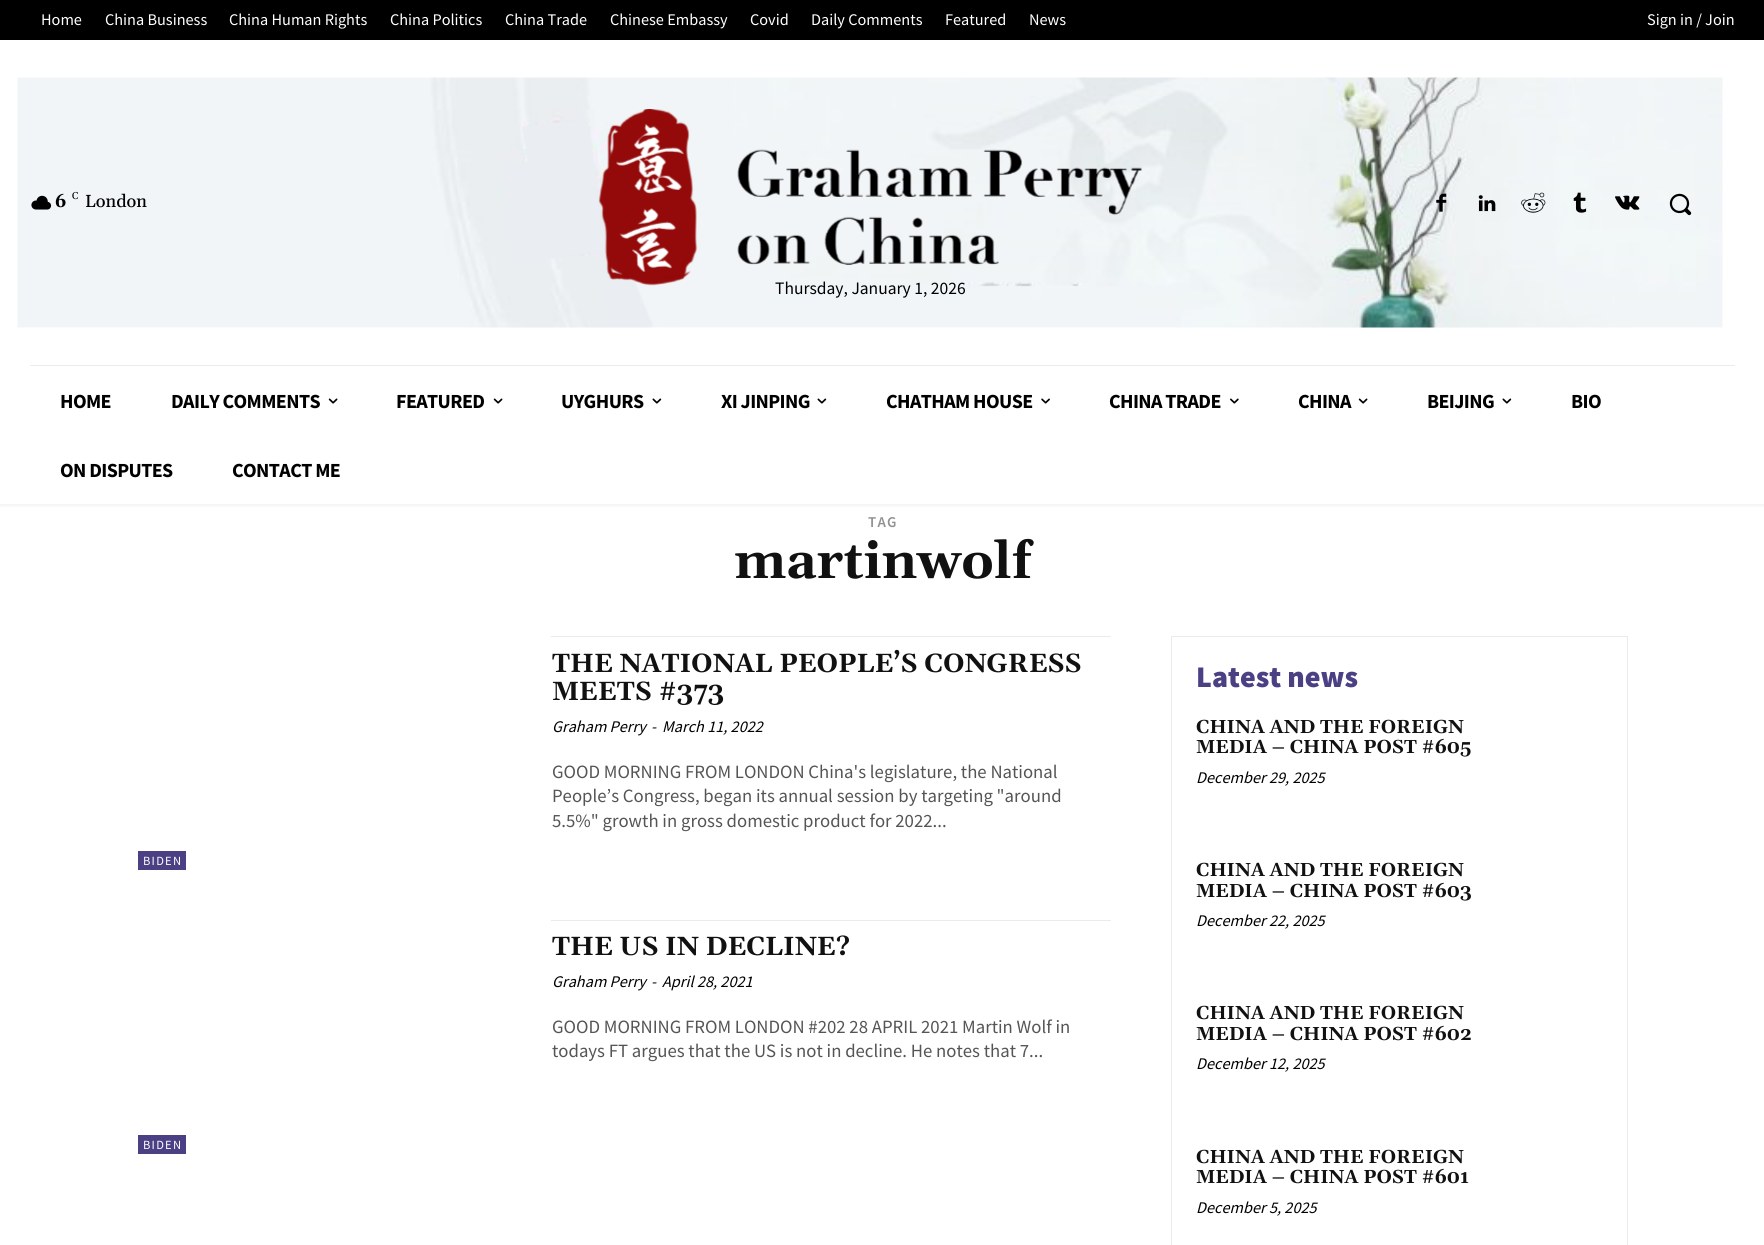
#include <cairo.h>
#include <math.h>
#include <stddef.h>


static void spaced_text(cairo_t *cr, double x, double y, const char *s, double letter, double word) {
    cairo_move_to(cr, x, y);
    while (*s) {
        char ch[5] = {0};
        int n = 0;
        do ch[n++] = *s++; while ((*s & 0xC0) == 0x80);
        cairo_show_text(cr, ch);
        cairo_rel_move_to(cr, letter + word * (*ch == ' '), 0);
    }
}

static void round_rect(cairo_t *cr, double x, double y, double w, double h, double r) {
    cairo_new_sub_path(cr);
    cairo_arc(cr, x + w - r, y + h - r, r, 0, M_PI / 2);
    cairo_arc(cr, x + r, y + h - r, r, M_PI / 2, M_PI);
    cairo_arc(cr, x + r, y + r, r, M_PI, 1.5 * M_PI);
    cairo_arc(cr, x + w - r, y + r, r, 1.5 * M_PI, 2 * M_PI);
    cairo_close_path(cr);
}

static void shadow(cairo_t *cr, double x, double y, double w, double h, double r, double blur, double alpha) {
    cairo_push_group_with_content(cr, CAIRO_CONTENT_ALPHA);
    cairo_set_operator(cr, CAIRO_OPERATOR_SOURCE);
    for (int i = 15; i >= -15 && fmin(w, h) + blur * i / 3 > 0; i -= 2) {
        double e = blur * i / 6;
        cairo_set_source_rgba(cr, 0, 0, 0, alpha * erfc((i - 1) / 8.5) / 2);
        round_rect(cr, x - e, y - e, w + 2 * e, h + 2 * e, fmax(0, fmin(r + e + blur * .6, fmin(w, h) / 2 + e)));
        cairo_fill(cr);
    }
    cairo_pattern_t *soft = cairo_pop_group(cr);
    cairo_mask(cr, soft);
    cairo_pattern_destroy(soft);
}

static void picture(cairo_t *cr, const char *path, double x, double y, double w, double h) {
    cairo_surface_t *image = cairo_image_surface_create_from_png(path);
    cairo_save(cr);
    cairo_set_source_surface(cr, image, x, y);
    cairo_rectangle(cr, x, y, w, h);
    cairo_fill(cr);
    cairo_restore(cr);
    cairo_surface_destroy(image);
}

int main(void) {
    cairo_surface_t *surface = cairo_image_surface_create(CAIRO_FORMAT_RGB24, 1764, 1245);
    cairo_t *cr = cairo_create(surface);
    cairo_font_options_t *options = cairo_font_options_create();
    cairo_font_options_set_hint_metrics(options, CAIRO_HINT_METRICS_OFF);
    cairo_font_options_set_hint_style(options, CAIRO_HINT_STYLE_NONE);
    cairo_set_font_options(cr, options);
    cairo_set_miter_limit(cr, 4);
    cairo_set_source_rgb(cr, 1, 1, 1);
    cairo_paint(cr);
    cairo_set_source_rgb(cr, 0, 0, 0);
    cairo_rectangle(cr, 0, 0, 1764, 40);
    cairo_fill(cr);
    cairo_select_font_face(cr, "Source Sans Pro", CAIRO_FONT_SLANT_NORMAL, CAIRO_FONT_WEIGHT_NORMAL);
    cairo_set_font_size(cr, 16.25);
    cairo_set_source_rgb(cr, 1, 1, 1);
    cairo_move_to(cr, 41, 25);
    cairo_show_text(cr, "Home");
    cairo_move_to(cr, 105, 25);
    cairo_show_text(cr, "China Business");
    cairo_move_to(cr, 229, 25);
    cairo_show_text(cr, "China Human Rights");
    cairo_move_to(cr, 390, 25);
    cairo_show_text(cr, "China Politics");
    cairo_move_to(cr, 505, 25);
    cairo_show_text(cr, "China Trade");
    cairo_move_to(cr, 610, 25);
    cairo_show_text(cr, "Chinese Embassy");
    cairo_move_to(cr, 750, 25);
    cairo_show_text(cr, "Covid");
    cairo_move_to(cr, 811, 25);
    cairo_show_text(cr, "Daily Comments");
    cairo_move_to(cr, 945, 25);
    cairo_show_text(cr, "Featured");
    cairo_move_to(cr, 1029, 25);
    cairo_show_text(cr, "News");
    cairo_move_to(cr, 1647, 25);
    cairo_show_text(cr, "Sign in / Join");
    picture(cr, "img1.png", 17, 77, 1706, 251);
    picture(cr, "img2.png", 31, 195, 21, 15);
    cairo_select_font_face(cr, "Gelasio", CAIRO_FONT_SLANT_NORMAL, CAIRO_FONT_WEIGHT_BOLD);
    cairo_set_font_size(cr, 17.5);
    cairo_set_source_rgb(cr, 0, 0, 0);
    cairo_move_to(cr, 55, 207);
    cairo_show_text(cr, "6");
    cairo_select_font_face(cr, "Gelasio", CAIRO_FONT_SLANT_NORMAL, CAIRO_FONT_WEIGHT_NORMAL);
    cairo_set_font_size(cr, 10);
    cairo_move_to(cr, 72, 199);
    cairo_show_text(cr, "C");
    cairo_select_font_face(cr, "Gelasio Medium", CAIRO_FONT_SLANT_NORMAL, CAIRO_FONT_WEIGHT_NORMAL);
    cairo_set_font_size(cr, 17.5);
    cairo_move_to(cr, 85, 207);
    cairo_show_text(cr, "London");
    picture(cr, "img3.png", 1436, 193, 11, 19);
    picture(cr, "img4.png", 1478, 195, 18, 17);
    picture(cr, "img5.png", 1521, 192, 25, 21);
    picture(cr, "img6.png", 1573, 192, 14, 21);
    picture(cr, "img7.png", 1615, 195, 25, 15);
    picture(cr, "img8.png", 1669, 193, 23, 23);
    picture(cr, "img9.png", 598, 109, 544, 177);
    cairo_select_font_face(cr, "Source Sans Pro", CAIRO_FONT_SLANT_NORMAL, CAIRO_FONT_WEIGHT_NORMAL);
    cairo_move_to(cr, 775, 294);
    cairo_show_text(cr, "Thursday, January 1, 2026");
    cairo_set_source_rgb(cr, 0.918, 0.918, 0.918);
    cairo_rectangle(cr, 30, 365, 1705, 1);
    cairo_fill(cr);
    cairo_save(cr);
    cairo_rectangle(cr, 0, 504, 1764, 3);
    cairo_clip(cr);
    cairo_set_source_rgb(cr, 0, 0, 0);
    shadow(cr, 0, 330, 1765, 176, 0, 2.5, 0.06);
    cairo_restore(cr);
    cairo_select_font_face(cr, "Source Sans Pro", CAIRO_FONT_SLANT_NORMAL, CAIRO_FONT_WEIGHT_BOLD);
    cairo_set_font_size(cr, 20);
    cairo_set_source_rgb(cr, 0, 0, 0);
    spaced_text(cr, 60, 408, "HOME", -0.6, 0);
    spaced_text(cr, 171, 408, "DAILY COMMENTS", -0.6, 0);
    picture(cr, "img10.png", 328, 398, 10, 6);
    spaced_text(cr, 396, 408, "FEATURED", -0.6, 0);
    picture(cr, "img10.png", 493, 398, 10, 6);
    spaced_text(cr, 561, 408, "UYGHURS", -0.6, 0);
    picture(cr, "img11.png", 652, 398, 10, 6);
    spaced_text(cr, 721, 408, "XI JINPING", -0.6, 0);
    picture(cr, "img11.png", 817, 398, 10, 6);
    spaced_text(cr, 886, 408, "CHATHAM HOUSE", -0.6, 0);
    picture(cr, "img12.png", 1041, 398, 9, 6);
    spaced_text(cr, 1109, 408, "CHINA TRADE", -0.6, 0);
    picture(cr, "img13.png", 1230, 398, 9, 6);
    spaced_text(cr, 1298, 408, "CHINA", -0.6, 0);
    picture(cr, "img10.png", 1358, 398, 10, 6);
    spaced_text(cr, 1427, 408, "BEIJING", -0.6, 0);
    picture(cr, "img11.png", 1502, 398, 10, 6);
    spaced_text(cr, 1571, 408, "BIO", -0.6, 0);
    spaced_text(cr, 60, 477, "ON DISPUTES", -0.6, 0);
    spaced_text(cr, 232, 477, "CONTACT ME", -0.6, 0);
    cairo_select_font_face(cr, "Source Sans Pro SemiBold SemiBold", CAIRO_FONT_SLANT_NORMAL, CAIRO_FONT_WEIGHT_NORMAL);
    cairo_set_font_size(cr, 15);
    cairo_set_source_rgb(cr, 0.569, 0.569, 0.569);
    spaced_text(cr, 868, 527, "TAG", 1.25, 0);
    cairo_select_font_face(cr, "Gelasio", CAIRO_FONT_SLANT_NORMAL, CAIRO_FONT_WEIGHT_BOLD);
    cairo_set_font_size(cr, 51.25);
    cairo_set_source_rgb(cr, 0.067, 0.067, 0.067);
    cairo_move_to(cr, 734, 578);
    cairo_show_text(cr, "martinwolf");
    cairo_set_source_rgb(cr, 0.918, 0.918, 0.918);
    cairo_rectangle(cr, 551, 636, 560, 1);
    cairo_fill(cr);
    cairo_set_font_size(cr, 26.25);
    cairo_set_source_rgb(cr, 0.067, 0.067, 0.067);
    cairo_move_to(cr, 552, 672);
    cairo_show_text(cr, "THE NATIONAL PEOPLE’S CONGRESS");
    cairo_move_to(cr, 552, 700);
    cairo_show_text(cr, "MEETS #373");
    cairo_select_font_face(cr, "Source Sans Pro", CAIRO_FONT_SLANT_ITALIC, CAIRO_FONT_WEIGHT_NORMAL);
    cairo_set_font_size(cr, 16.25);
    cairo_set_source_rgb(cr, 0, 0, 0);
    cairo_move_to(cr, 552, 732);
    cairo_show_text(cr, "Graham Perry");
    cairo_move_to(cr, 651, 732);
    cairo_show_text(cr, "-");
    cairo_move_to(cr, 662, 732);
    cairo_show_text(cr, "March 11, 2022");
    cairo_select_font_face(cr, "Source Sans Pro", CAIRO_FONT_SLANT_NORMAL, CAIRO_FONT_WEIGHT_NORMAL);
    cairo_set_font_size(cr, 18.75);
    cairo_set_source_rgb(cr, 0.333, 0.333, 0.333);
    cairo_move_to(cr, 552, 778);
    cairo_show_text(cr, "GOOD MORNING FROM LONDON China's legislature, the National");
    cairo_move_to(cr, 552, 802);
    cairo_show_text(cr, "People’s Congress, began its annual session by targeting \"around");
    cairo_move_to(cr, 552, 827);
    cairo_show_text(cr, "5.5%\" growth in gross domestic product for 2022...");
    cairo_set_source_rgb(cr, 0.298, 0.251, 0.518);
    cairo_rectangle(cr, 138, 851, 48, 19);
    cairo_fill(cr);
    cairo_set_font_size(cr, 12.5);
    cairo_set_source_rgb(cr, 1, 1, 1);
    spaced_text(cr, 143, 865, "BIDEN", 1.25, 0);
    cairo_set_source_rgb(cr, 0.918, 0.918, 0.918);
    cairo_rectangle(cr, 551, 920, 560, 1);
    cairo_fill(cr);
    cairo_select_font_face(cr, "Gelasio", CAIRO_FONT_SLANT_NORMAL, CAIRO_FONT_WEIGHT_BOLD);
    cairo_set_font_size(cr, 26.25);
    cairo_set_source_rgb(cr, 0.067, 0.067, 0.067);
    cairo_move_to(cr, 552, 955);
    cairo_show_text(cr, "THE US IN DECLINE?");
    cairo_select_font_face(cr, "Source Sans Pro", CAIRO_FONT_SLANT_ITALIC, CAIRO_FONT_WEIGHT_NORMAL);
    cairo_set_font_size(cr, 16.25);
    cairo_set_source_rgb(cr, 0, 0, 0);
    cairo_move_to(cr, 552, 987);
    cairo_show_text(cr, "Graham Perry");
    cairo_move_to(cr, 651, 987);
    cairo_show_text(cr, "-");
    cairo_move_to(cr, 662, 987);
    cairo_show_text(cr, "April 28, 2021");
    cairo_select_font_face(cr, "Source Sans Pro", CAIRO_FONT_SLANT_NORMAL, CAIRO_FONT_WEIGHT_NORMAL);
    cairo_set_font_size(cr, 18.75);
    cairo_set_source_rgb(cr, 0.333, 0.333, 0.333);
    cairo_move_to(cr, 552, 1033);
    cairo_show_text(cr, "GOOD MORNING FROM LONDON #202 28 APRIL 2021 Martin Wolf in");
    cairo_move_to(cr, 552, 1057);
    cairo_show_text(cr, "todays FT argues that the US is not in decline. He notes that 7...");
    cairo_set_source_rgb(cr, 0.298, 0.251, 0.518);
    cairo_rectangle(cr, 138, 1135, 48, 19);
    cairo_fill(cr);
    cairo_set_font_size(cr, 12.5);
    cairo_set_source_rgb(cr, 1, 1, 1);
    spaced_text(cr, 143, 1149, "BIDEN", 1.25, 0);
    cairo_rectangle(cr, 1171.5, 636.5, 456, 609);
    cairo_set_source_rgb(cr, 0.918, 0.918, 0.918);
    cairo_set_line_width(cr, 1);
    cairo_stroke(cr);
    cairo_select_font_face(cr, "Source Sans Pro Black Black", CAIRO_FONT_SLANT_NORMAL, CAIRO_FONT_WEIGHT_NORMAL);
    cairo_set_font_size(cr, 30);
    cairo_set_source_rgb(cr, 0.298, 0.251, 0.518);
    cairo_move_to(cr, 1196, 687);
    cairo_show_text(cr, "Latest news");
    cairo_select_font_face(cr, "Gelasio", CAIRO_FONT_SLANT_NORMAL, CAIRO_FONT_WEIGHT_BOLD);
    cairo_set_font_size(cr, 18.75);
    cairo_set_source_rgb(cr, 0.067, 0.067, 0.067);
    cairo_move_to(cr, 1196, 733);
    cairo_show_text(cr, "CHINA AND THE FOREIGN");
    cairo_move_to(cr, 1196, 753);
    cairo_show_text(cr, "MEDIA – CHINA POST #605");
    cairo_select_font_face(cr, "Source Sans Pro", CAIRO_FONT_SLANT_ITALIC, CAIRO_FONT_WEIGHT_NORMAL);
    cairo_set_font_size(cr, 16.25);
    cairo_set_source_rgb(cr, 0, 0, 0);
    cairo_move_to(cr, 1196, 783);
    cairo_show_text(cr, "December 29, 2025");
    cairo_select_font_face(cr, "Gelasio", CAIRO_FONT_SLANT_NORMAL, CAIRO_FONT_WEIGHT_BOLD);
    cairo_set_font_size(cr, 18.75);
    cairo_set_source_rgb(cr, 0.067, 0.067, 0.067);
    cairo_move_to(cr, 1196, 876);
    cairo_show_text(cr, "CHINA AND THE FOREIGN");
    cairo_move_to(cr, 1196, 897);
    cairo_show_text(cr, "MEDIA – CHINA POST #603");
    cairo_select_font_face(cr, "Source Sans Pro", CAIRO_FONT_SLANT_ITALIC, CAIRO_FONT_WEIGHT_NORMAL);
    cairo_set_font_size(cr, 16.25);
    cairo_set_source_rgb(cr, 0, 0, 0);
    cairo_move_to(cr, 1196, 926);
    cairo_show_text(cr, "December 22, 2025");
    cairo_select_font_face(cr, "Gelasio", CAIRO_FONT_SLANT_NORMAL, CAIRO_FONT_WEIGHT_BOLD);
    cairo_set_font_size(cr, 18.75);
    cairo_set_source_rgb(cr, 0.067, 0.067, 0.067);
    cairo_move_to(cr, 1196, 1019);
    cairo_show_text(cr, "CHINA AND THE FOREIGN");
    cairo_move_to(cr, 1196, 1040);
    cairo_show_text(cr, "MEDIA – CHINA POST #602");
    cairo_select_font_face(cr, "Source Sans Pro", CAIRO_FONT_SLANT_ITALIC, CAIRO_FONT_WEIGHT_NORMAL);
    cairo_set_font_size(cr, 16.25);
    cairo_set_source_rgb(cr, 0, 0, 0);
    cairo_move_to(cr, 1196, 1069);
    cairo_show_text(cr, "December 12, 2025");
    cairo_select_font_face(cr, "Gelasio", CAIRO_FONT_SLANT_NORMAL, CAIRO_FONT_WEIGHT_BOLD);
    cairo_set_font_size(cr, 18.75);
    cairo_set_source_rgb(cr, 0.067, 0.067, 0.067);
    cairo_move_to(cr, 1196, 1163);
    cairo_show_text(cr, "CHINA AND THE FOREIGN");
    cairo_move_to(cr, 1196, 1183);
    cairo_show_text(cr, "MEDIA – CHINA POST #601");
    cairo_select_font_face(cr, "Source Sans Pro", CAIRO_FONT_SLANT_ITALIC, CAIRO_FONT_WEIGHT_NORMAL);
    cairo_set_font_size(cr, 16.25);
    cairo_set_source_rgb(cr, 0, 0, 0);
    cairo_move_to(cr, 1196, 1213);
    cairo_show_text(cr, "December 5, 2025");
    cairo_surface_write_to_png(surface, "page.png");
    cairo_font_options_destroy(options);
    cairo_destroy(cr);
    cairo_surface_destroy(surface);
    return 0;
}
